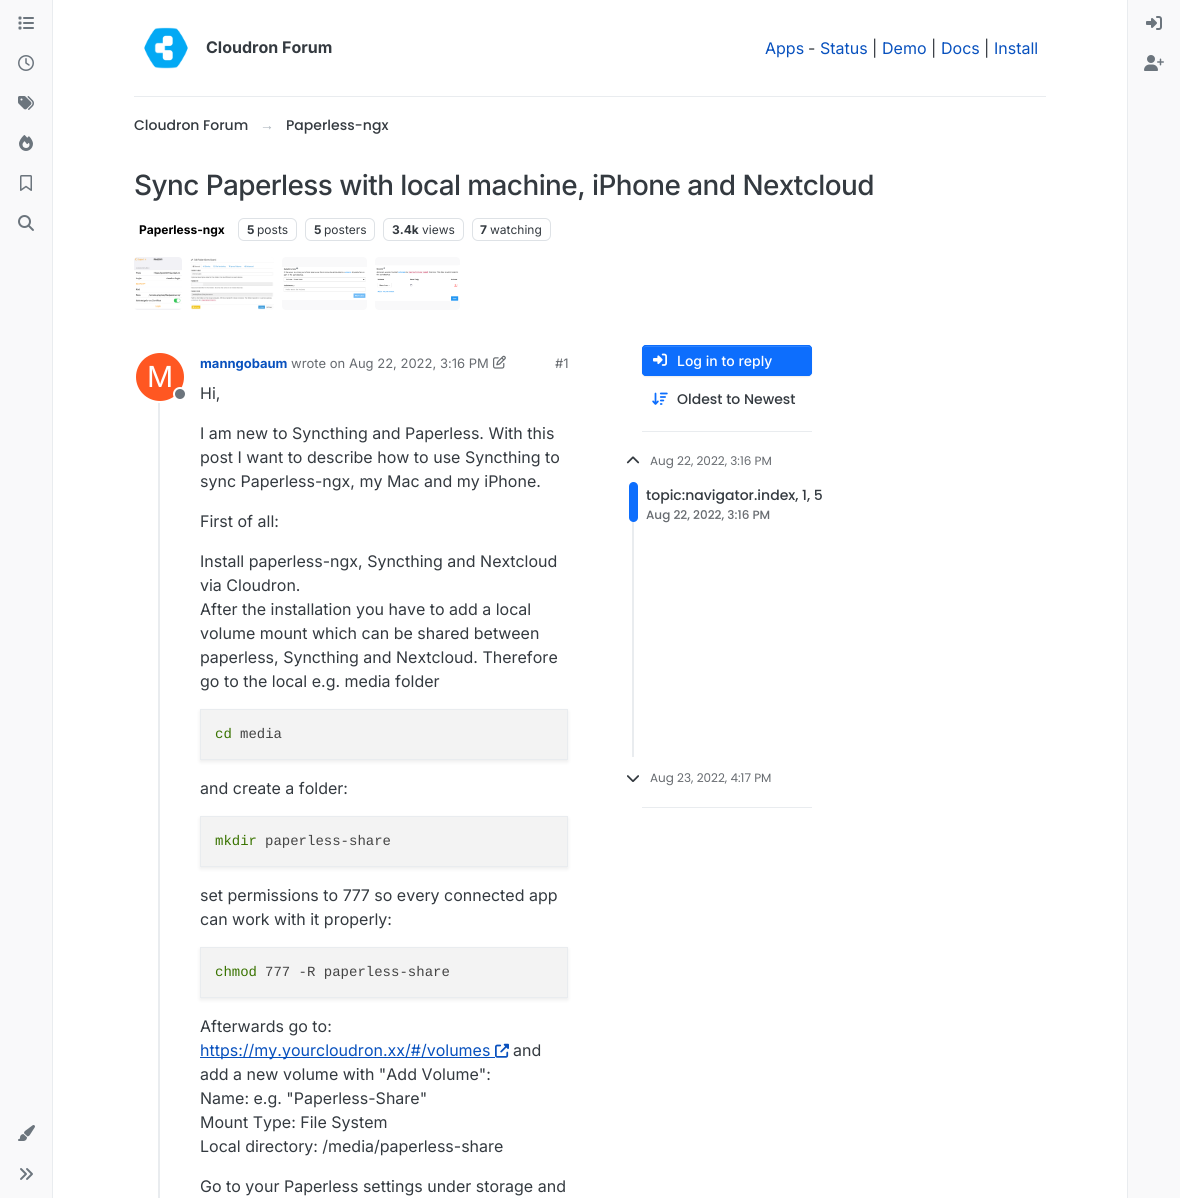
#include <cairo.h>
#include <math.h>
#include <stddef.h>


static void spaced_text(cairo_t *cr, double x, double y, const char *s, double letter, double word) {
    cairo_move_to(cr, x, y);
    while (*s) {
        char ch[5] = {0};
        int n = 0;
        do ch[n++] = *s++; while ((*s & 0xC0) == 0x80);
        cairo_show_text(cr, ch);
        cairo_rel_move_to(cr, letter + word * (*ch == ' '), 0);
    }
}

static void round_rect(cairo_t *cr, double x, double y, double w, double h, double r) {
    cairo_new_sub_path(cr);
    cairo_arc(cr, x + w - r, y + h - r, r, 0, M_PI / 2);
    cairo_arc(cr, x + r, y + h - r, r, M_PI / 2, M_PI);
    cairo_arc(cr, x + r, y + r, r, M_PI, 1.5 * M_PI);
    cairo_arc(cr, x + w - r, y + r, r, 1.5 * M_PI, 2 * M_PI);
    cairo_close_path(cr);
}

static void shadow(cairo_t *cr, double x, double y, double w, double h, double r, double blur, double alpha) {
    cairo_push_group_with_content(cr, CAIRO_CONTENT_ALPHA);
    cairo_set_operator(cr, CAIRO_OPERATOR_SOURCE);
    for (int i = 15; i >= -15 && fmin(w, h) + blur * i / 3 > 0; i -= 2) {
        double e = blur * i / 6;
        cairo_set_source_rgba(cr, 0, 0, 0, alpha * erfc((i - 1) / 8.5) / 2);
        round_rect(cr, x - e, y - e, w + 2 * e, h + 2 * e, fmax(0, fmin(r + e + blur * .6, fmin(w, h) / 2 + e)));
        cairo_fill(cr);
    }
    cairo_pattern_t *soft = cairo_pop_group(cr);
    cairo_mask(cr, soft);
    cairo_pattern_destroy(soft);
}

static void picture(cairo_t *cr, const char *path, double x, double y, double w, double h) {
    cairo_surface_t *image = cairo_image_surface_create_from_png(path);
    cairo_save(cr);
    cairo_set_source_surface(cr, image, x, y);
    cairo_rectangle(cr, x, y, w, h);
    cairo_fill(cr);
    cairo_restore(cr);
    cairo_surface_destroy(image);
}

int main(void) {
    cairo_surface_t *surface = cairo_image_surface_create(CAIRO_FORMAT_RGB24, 1180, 1198);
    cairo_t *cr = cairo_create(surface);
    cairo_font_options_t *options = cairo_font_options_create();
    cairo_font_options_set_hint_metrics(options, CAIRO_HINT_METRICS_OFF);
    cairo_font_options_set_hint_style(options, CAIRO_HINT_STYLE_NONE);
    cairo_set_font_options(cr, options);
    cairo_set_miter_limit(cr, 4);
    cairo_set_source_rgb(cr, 1, 1, 1);
    cairo_paint(cr);
    cairo_set_source_rgb(cr, 0.973, 0.976, 0.98);
    cairo_rectangle(cr, 0, 0, 52, 1198);
    cairo_fill(cr);
    cairo_set_source_rgb(cr, 0.914, 0.925, 0.937);
    cairo_rectangle(cr, 52, 0, 1, 1198);
    cairo_fill(cr);
    picture(cr, "img1.png", 18, 16, 16, 14);
    picture(cr, "img2.png", 18, 55, 16, 16);
    picture(cr, "img3.png", 18, 96, 16, 14);
    picture(cr, "img4.png", 19, 135, 14, 16);
    picture(cr, "img5.png", 20, 175, 12, 16);
    picture(cr, "img6.png", 18, 215, 16, 16);
    picture(cr, "img7.png", 18, 1125, 17, 16);
    picture(cr, "img8.png", 20, 1168, 13, 12);
    cairo_rectangle(cr, 134, 96, 912, 1);
    cairo_fill(cr);
    picture(cr, "img9.png", 144, 27, 44, 42);
    cairo_select_font_face(cr, "Inter", CAIRO_FONT_SLANT_NORMAL, CAIRO_FONT_WEIGHT_BOLD);
    cairo_set_font_size(cr, 16);
    cairo_set_source_rgb(cr, 0.204, 0.227, 0.251);
    cairo_move_to(cr, 206, 53);
    cairo_show_text(cr, "Cloudron Forum");
    cairo_select_font_face(cr, "Inter", CAIRO_FONT_SLANT_NORMAL, CAIRO_FONT_WEIGHT_NORMAL);
    cairo_set_source_rgb(cr, 0.035, 0.318, 0.745);
    cairo_move_to(cr, 765, 54);
    cairo_show_text(cr, "Apps");
    cairo_set_source_rgb(cr, 0.204, 0.227, 0.251);
    cairo_move_to(cr, 808, 54);
    cairo_show_text(cr, "-");
    cairo_set_source_rgb(cr, 0.035, 0.318, 0.745);
    cairo_move_to(cr, 820, 54);
    cairo_show_text(cr, "Status");
    cairo_set_source_rgb(cr, 0.204, 0.227, 0.251);
    cairo_move_to(cr, 872, 54);
    cairo_show_text(cr, "|");
    cairo_set_source_rgb(cr, 0.035, 0.318, 0.745);
    cairo_move_to(cr, 882, 54);
    cairo_show_text(cr, "Demo");
    cairo_set_source_rgb(cr, 0.204, 0.227, 0.251);
    cairo_move_to(cr, 931, 54);
    cairo_show_text(cr, "|");
    cairo_set_source_rgb(cr, 0.035, 0.318, 0.745);
    cairo_move_to(cr, 941, 54);
    cairo_show_text(cr, "Docs");
    cairo_set_source_rgb(cr, 0.204, 0.227, 0.251);
    cairo_move_to(cr, 984, 54);
    cairo_show_text(cr, "|");
    cairo_set_source_rgb(cr, 0.035, 0.318, 0.745);
    cairo_move_to(cr, 994, 54);
    cairo_show_text(cr, "Install");
    cairo_select_font_face(cr, "Poppins Medium", CAIRO_FONT_SLANT_NORMAL, CAIRO_FONT_WEIGHT_NORMAL);
    cairo_set_font_size(cr, 14);
    cairo_set_source_rgb(cr, 0.204, 0.227, 0.251);
    cairo_move_to(cr, 134, 130);
    cairo_show_text(cr, "Cloudron Forum");
    cairo_select_font_face(cr, "Liberation Sans", CAIRO_FONT_SLANT_NORMAL, CAIRO_FONT_WEIGHT_NORMAL);
    cairo_set_source_rgb(cr, 0.678, 0.71, 0.741);
    cairo_move_to(cr, 260, 130);
    cairo_show_text(cr, "→");
    cairo_select_font_face(cr, "Poppins Medium", CAIRO_FONT_SLANT_NORMAL, CAIRO_FONT_WEIGHT_NORMAL);
    cairo_set_source_rgb(cr, 0.204, 0.227, 0.251);
    cairo_move_to(cr, 286, 130);
    cairo_show_text(cr, "Paperless-ngx");
    cairo_select_font_face(cr, "Inter Medium", CAIRO_FONT_SLANT_NORMAL, CAIRO_FONT_WEIGHT_NORMAL);
    cairo_set_font_size(cr, 27.9);
    spaced_text(cr, 134, 195, "Sync Paperless with local machine, iPhone and Nextcloud", -0.55, 0);
    cairo_select_font_face(cr, "Inter", CAIRO_FONT_SLANT_NORMAL, CAIRO_FONT_WEIGHT_BOLD);
    cairo_set_font_size(cr, 12);
    cairo_set_source_rgb(cr, 0, 0, 0);
    cairo_move_to(cr, 139, 234);
    cairo_show_text(cr, "Paperless-ngx");
    round_rect(cr, 238.5, 218.5, 58, 22, 5.5);
    cairo_set_source_rgb(cr, 0.871, 0.886, 0.902);
    cairo_set_line_width(cr, 1);
    cairo_stroke(cr);
    cairo_set_source_rgb(cr, 0.204, 0.227, 0.251);
    cairo_move_to(cr, 247, 234);
    cairo_show_text(cr, "5");
    cairo_select_font_face(cr, "Inter", CAIRO_FONT_SLANT_NORMAL, CAIRO_FONT_WEIGHT_NORMAL);
    cairo_move_to(cr, 257, 234);
    cairo_show_text(cr, "posts");
    round_rect(cr, 305.5, 218.5, 69, 22, 5.5);
    cairo_set_source_rgb(cr, 0.871, 0.886, 0.902);
    cairo_stroke(cr);
    cairo_select_font_face(cr, "Inter", CAIRO_FONT_SLANT_NORMAL, CAIRO_FONT_WEIGHT_BOLD);
    cairo_set_source_rgb(cr, 0.204, 0.227, 0.251);
    cairo_move_to(cr, 314, 234);
    cairo_show_text(cr, "5");
    cairo_select_font_face(cr, "Inter", CAIRO_FONT_SLANT_NORMAL, CAIRO_FONT_WEIGHT_NORMAL);
    cairo_move_to(cr, 324, 234);
    cairo_show_text(cr, "posters");
    round_rect(cr, 383.5, 218.5, 80, 22, 5.5);
    cairo_set_source_rgb(cr, 0.871, 0.886, 0.902);
    cairo_stroke(cr);
    cairo_select_font_face(cr, "Inter", CAIRO_FONT_SLANT_NORMAL, CAIRO_FONT_WEIGHT_BOLD);
    cairo_set_source_rgb(cr, 0.204, 0.227, 0.251);
    cairo_move_to(cr, 392, 234);
    cairo_show_text(cr, "3.4k");
    cairo_select_font_face(cr, "Inter", CAIRO_FONT_SLANT_NORMAL, CAIRO_FONT_WEIGHT_NORMAL);
    cairo_move_to(cr, 422, 234);
    cairo_show_text(cr, "views");
    round_rect(cr, 472.5, 218.5, 78, 22, 5.5);
    cairo_set_source_rgb(cr, 0.871, 0.886, 0.902);
    cairo_stroke(cr);
    cairo_select_font_face(cr, "Inter", CAIRO_FONT_SLANT_NORMAL, CAIRO_FONT_WEIGHT_BOLD);
    cairo_set_source_rgb(cr, 0.204, 0.227, 0.251);
    cairo_move_to(cr, 480, 234);
    cairo_show_text(cr, "7");
    cairo_select_font_face(cr, "Inter", CAIRO_FONT_SLANT_NORMAL, CAIRO_FONT_WEIGHT_NORMAL);
    cairo_move_to(cr, 490, 234);
    cairo_show_text(cr, "watching");
    picture(cr, "img10.png", 134, 257, 48, 53);
    cairo_set_source_rgb(cr, 0.973, 0.976, 0.98);
    round_rect(cr, 190, 257, 84, 53, 4);
    cairo_fill(cr);
    picture(cr, "img11.png", 190, 257, 84, 53);
    round_rect(cr, 282, 257, 85, 53, 4);
    cairo_fill(cr);
    picture(cr, "img12.png", 282, 267, 85, 33);
    round_rect(cr, 375, 257, 85, 53, 4);
    cairo_fill(cr);
    picture(cr, "img13.png", 375, 265, 85, 36);
    cairo_set_source_rgb(cr, 0.914, 0.925, 0.937);
    cairo_rectangle(cr, 158, 353, 2, 845);
    cairo_fill(cr);
    cairo_arc(cr, 160, 377, 25, 0, 2 * M_PI);
    cairo_set_source_rgb(cr, 1, 1, 1);
    cairo_set_line_width(cr, 2);
    cairo_stroke(cr);
    cairo_set_source_rgb(cr, 1, 0.341, 0.133);
    cairo_arc(cr, 160, 377, 24, 0, 2 * M_PI);
    cairo_fill(cr);
    cairo_set_font_size(cr, 29);
    cairo_set_source_rgb(cr, 1, 1, 1);
    cairo_move_to(cr, 147, 387);
    cairo_show_text(cr, "M");
    cairo_set_source_rgb(cr, 0.424, 0.459, 0.49);
    cairo_new_path(cr);
    cairo_arc(cr, 180, 394, 6, 0, 2 * M_PI);
    cairo_fill_preserve(cr);
    cairo_set_source_rgb(cr, 1, 1, 1);
    cairo_stroke(cr);
    cairo_select_font_face(cr, "Inter", CAIRO_FONT_SLANT_NORMAL, CAIRO_FONT_WEIGHT_BOLD);
    cairo_set_font_size(cr, 13);
    cairo_set_source_rgb(cr, 0.035, 0.318, 0.745);
    cairo_move_to(cr, 200, 368);
    cairo_show_text(cr, "manngobaum");
    cairo_select_font_face(cr, "Inter", CAIRO_FONT_SLANT_NORMAL, CAIRO_FONT_WEIGHT_NORMAL);
    cairo_set_source_rgb(cr, 0.404, 0.42, 0.439);
    cairo_move_to(cr, 291, 368);
    cairo_show_text(cr, "wrote on Aug 22, 2022, 3:16 PM");
    picture(cr, "img14.png", 493, 355, 13, 14);
    cairo_move_to(cr, 555, 368);
    cairo_show_text(cr, "#1");
    cairo_set_font_size(cr, 16);
    cairo_set_source_rgb(cr, 0.204, 0.227, 0.251);
    cairo_move_to(cr, 200, 399);
    cairo_show_text(cr, "Hi,");
    cairo_move_to(cr, 200, 439);
    cairo_show_text(cr, "I am new to Syncthing and Paperless. With this");
    cairo_move_to(cr, 200, 463);
    cairo_show_text(cr, "post I want to describe how to use Syncthing to");
    cairo_move_to(cr, 200, 487);
    cairo_show_text(cr, "sync Paperless-ngx, my Mac and my iPhone.");
    cairo_move_to(cr, 200, 527);
    cairo_show_text(cr, "First of all:");
    cairo_move_to(cr, 200, 567);
    cairo_show_text(cr, "Install paperless-ngx, Syncthing and Nextcloud");
    cairo_move_to(cr, 200, 591);
    cairo_show_text(cr, "via Cloudron.");
    cairo_move_to(cr, 200, 615);
    cairo_show_text(cr, "After the installation you have to add a local");
    cairo_move_to(cr, 200, 639);
    cairo_show_text(cr, "volume mount which can be shared between");
    cairo_move_to(cr, 200, 663);
    cairo_show_text(cr, "paperless, Syncthing and Nextcloud. Therefore");
    cairo_move_to(cr, 200, 687);
    cairo_show_text(cr, "go to the local e.g. media folder");
    cairo_set_source_rgb(cr, 0, 0, 0);
    shadow(cr, 200, 711, 368, 51, 0, 2, 0.07);
    cairo_rectangle(cr, 200.5, 709.5, 367, 50);
    cairo_set_source_rgb(cr, 0.914, 0.925, 0.937);
    cairo_set_line_width(cr, 1);
    cairo_stroke(cr);
    cairo_set_source_rgb(cr, 0.953, 0.953, 0.953);
    cairo_rectangle(cr, 201, 710, 366, 49);
    cairo_fill(cr);
    cairo_select_font_face(cr, "Liberation Mono", CAIRO_FONT_SLANT_NORMAL, CAIRO_FONT_WEIGHT_NORMAL);
    cairo_set_font_size(cr, 14);
    cairo_set_source_rgb(cr, 0.224, 0.451, 0);
    cairo_move_to(cr, 215, 738);
    cairo_show_text(cr, "cd");
    cairo_set_source_rgb(cr, 0.267, 0.267, 0.267);
    cairo_move_to(cr, 240, 738);
    cairo_show_text(cr, "media");
    cairo_select_font_face(cr, "Inter", CAIRO_FONT_SLANT_NORMAL, CAIRO_FONT_WEIGHT_NORMAL);
    cairo_set_font_size(cr, 16);
    cairo_set_source_rgb(cr, 0.204, 0.227, 0.251);
    cairo_move_to(cr, 200, 794);
    cairo_show_text(cr, "and create a folder:");
    cairo_set_source_rgb(cr, 0, 0, 0);
    shadow(cr, 200, 818, 368, 51, 0, 2, 0.07);
    cairo_rectangle(cr, 200.5, 816.5, 367, 50);
    cairo_set_source_rgb(cr, 0.914, 0.925, 0.937);
    cairo_stroke(cr);
    cairo_set_source_rgb(cr, 0.953, 0.953, 0.953);
    cairo_rectangle(cr, 201, 817, 366, 49);
    cairo_fill(cr);
    cairo_select_font_face(cr, "Liberation Mono", CAIRO_FONT_SLANT_NORMAL, CAIRO_FONT_WEIGHT_NORMAL);
    cairo_set_font_size(cr, 14);
    cairo_set_source_rgb(cr, 0.224, 0.451, 0);
    cairo_move_to(cr, 215, 845);
    cairo_show_text(cr, "mkdir");
    cairo_set_source_rgb(cr, 0.267, 0.267, 0.267);
    cairo_move_to(cr, 265, 845);
    cairo_show_text(cr, "paperless-share");
    cairo_select_font_face(cr, "Inter", CAIRO_FONT_SLANT_NORMAL, CAIRO_FONT_WEIGHT_NORMAL);
    cairo_set_font_size(cr, 16);
    cairo_set_source_rgb(cr, 0.204, 0.227, 0.251);
    cairo_move_to(cr, 200, 901);
    cairo_show_text(cr, "set permissions to 777 so every connected app");
    cairo_move_to(cr, 200, 925);
    cairo_show_text(cr, "can work with it properly:");
    cairo_set_source_rgb(cr, 0, 0, 0);
    shadow(cr, 200, 949, 368, 51, 0, 2, 0.07);
    cairo_rectangle(cr, 200.5, 947.5, 367, 50);
    cairo_set_source_rgb(cr, 0.914, 0.925, 0.937);
    cairo_stroke(cr);
    cairo_set_source_rgb(cr, 0.953, 0.953, 0.953);
    cairo_rectangle(cr, 201, 948, 366, 49);
    cairo_fill(cr);
    cairo_select_font_face(cr, "Liberation Mono", CAIRO_FONT_SLANT_NORMAL, CAIRO_FONT_WEIGHT_NORMAL);
    cairo_set_font_size(cr, 14);
    cairo_set_source_rgb(cr, 0.224, 0.451, 0);
    cairo_move_to(cr, 215, 976);
    cairo_show_text(cr, "chmod");
    cairo_set_source_rgb(cr, 0.267, 0.267, 0.267);
    cairo_move_to(cr, 265, 976);
    cairo_show_text(cr, "777 -R paperless-share");
    cairo_select_font_face(cr, "Inter", CAIRO_FONT_SLANT_NORMAL, CAIRO_FONT_WEIGHT_NORMAL);
    cairo_set_font_size(cr, 16);
    cairo_set_source_rgb(cr, 0.204, 0.227, 0.251);
    cairo_move_to(cr, 200, 1032);
    cairo_show_text(cr, "Afterwards go to:");
    cairo_set_source_rgb(cr, 0.035, 0.318, 0.745);
    cairo_rectangle(cr, 200, 1057, 295, 1);
    cairo_fill(cr);
    cairo_move_to(cr, 200, 1056);
    cairo_show_text(cr, "https://my.yourcloudron.xx/#/volumes");
    picture(cr, "img15.png", 495, 1043, 14, 15);
    cairo_set_source_rgb(cr, 0.204, 0.227, 0.251);
    cairo_move_to(cr, 513, 1056);
    cairo_show_text(cr, "and");
    cairo_move_to(cr, 200, 1080);
    cairo_show_text(cr, "add a new volume with \"Add Volume\":");
    cairo_move_to(cr, 200, 1104);
    cairo_show_text(cr, "Name: e.g. \"Paperless-Share\"");
    cairo_move_to(cr, 200, 1128);
    cairo_show_text(cr, "Mount Type: File System");
    cairo_move_to(cr, 200, 1152);
    cairo_show_text(cr, "Local directory: /media/paperless-share");
    cairo_move_to(cr, 200, 1192);
    cairo_show_text(cr, "Go to your Paperless settings under storage and");
    cairo_set_source_rgb(cr, 0, 0, 0);
    shadow(cr, 642, 346, 170, 31, 4, 0.5, 0.07);
    cairo_set_source_rgb(cr, 0.051, 0.431, 0.992);
    round_rect(cr, 642, 345, 170, 31, 4);
    cairo_fill(cr);
    cairo_set_source_rgb(cr, 0.192, 0.518, 0.992);
    cairo_new_path(cr);
    cairo_move_to(cr, 646, 347);
    cairo_line_to(cr, 808, 347);
    cairo_curve_to(cr, 810, 347, 811, 348, 811, 350);
    cairo_line_to(cr, 811, 349);
    cairo_curve_to(cr, 811, 347, 810, 346, 808, 346);
    cairo_line_to(cr, 646, 346);
    cairo_curve_to(cr, 644, 346, 643, 347, 643, 349);
    cairo_line_to(cr, 643, 350);
    cairo_curve_to(cr, 643, 348, 644, 347, 646, 347);
    cairo_close_path(cr);
    cairo_fill(cr);
    round_rect(cr, 642.5, 345.5, 169, 30, 3.5);
    cairo_set_source_rgb(cr, 0.051, 0.431, 0.992);
    cairo_stroke(cr);
    picture(cr, "img16.png", 653, 353, 14, 13);
    cairo_select_font_face(cr, "Inter Medium", CAIRO_FONT_SLANT_NORMAL, CAIRO_FONT_WEIGHT_NORMAL);
    cairo_set_font_size(cr, 14);
    cairo_set_source_rgb(cr, 1, 1, 1);
    cairo_move_to(cr, 677, 366);
    cairo_show_text(cr, "Log in to reply");
    picture(cr, "img17.png", 652, 392, 16, 13);
    cairo_select_font_face(cr, "Poppins Medium", CAIRO_FONT_SLANT_NORMAL, CAIRO_FONT_WEIGHT_NORMAL);
    cairo_set_source_rgb(cr, 0.204, 0.227, 0.251);
    cairo_move_to(cr, 677, 404);
    cairo_show_text(cr, "Oldest to Newest");
    cairo_set_source_rgb(cr, 0.914, 0.925, 0.937);
    cairo_rectangle(cr, 642, 431, 170, 1);
    cairo_fill(cr);
    picture(cr, "img18.png", 626, 456, 14, 8);
    cairo_select_font_face(cr, "Poppins", CAIRO_FONT_SLANT_NORMAL, CAIRO_FONT_WEIGHT_NORMAL);
    cairo_set_font_size(cr, 12);
    cairo_set_source_rgb(cr, 0.404, 0.42, 0.439);
    cairo_move_to(cr, 650, 465);
    cairo_show_text(cr, "Aug 22, 2022, 3:16 PM");
    cairo_set_source_rgb(cr, 0.914, 0.925, 0.937);
    cairo_rectangle(cr, 632, 482, 2, 275);
    cairo_fill(cr);
    cairo_set_source_rgb(cr, 0.051, 0.431, 0.992);
    round_rect(cr, 629, 482, 9, 40, 4.5);
    cairo_fill(cr);
    cairo_select_font_face(cr, "Poppins Medium", CAIRO_FONT_SLANT_NORMAL, CAIRO_FONT_WEIGHT_NORMAL);
    cairo_set_font_size(cr, 14);
    cairo_set_source_rgb(cr, 0.204, 0.227, 0.251);
    cairo_move_to(cr, 646, 500);
    cairo_show_text(cr, "topic:navigator.index, 1, 5");
    cairo_set_font_size(cr, 12);
    cairo_set_source_rgb(cr, 0.404, 0.42, 0.439);
    cairo_move_to(cr, 646, 519);
    cairo_show_text(cr, "Aug 22, 2022, 3:16 PM");
    picture(cr, "img19.png", 627, 775, 12, 7);
    cairo_select_font_face(cr, "Poppins", CAIRO_FONT_SLANT_NORMAL, CAIRO_FONT_WEIGHT_NORMAL);
    cairo_move_to(cr, 650, 782);
    cairo_show_text(cr, "Aug 23, 2022, 4:17 PM");
    cairo_set_source_rgb(cr, 0.914, 0.925, 0.937);
    cairo_rectangle(cr, 642, 807, 170, 1);
    cairo_fill(cr);
    cairo_set_source_rgb(cr, 0.973, 0.976, 0.98);
    cairo_rectangle(cr, 1128, 0, 52, 1198);
    cairo_fill(cr);
    cairo_set_source_rgb(cr, 0.914, 0.925, 0.937);
    cairo_rectangle(cr, 1127, 0, 1, 1198);
    cairo_fill(cr);
    picture(cr, "img20.png", 1146, 16, 16, 14);
    picture(cr, "img21.png", 1144, 55, 20, 16);
    cairo_surface_write_to_png(surface, "page.png");
    cairo_font_options_destroy(options);
    cairo_destroy(cr);
    cairo_surface_destroy(surface);
    return 0;
}
